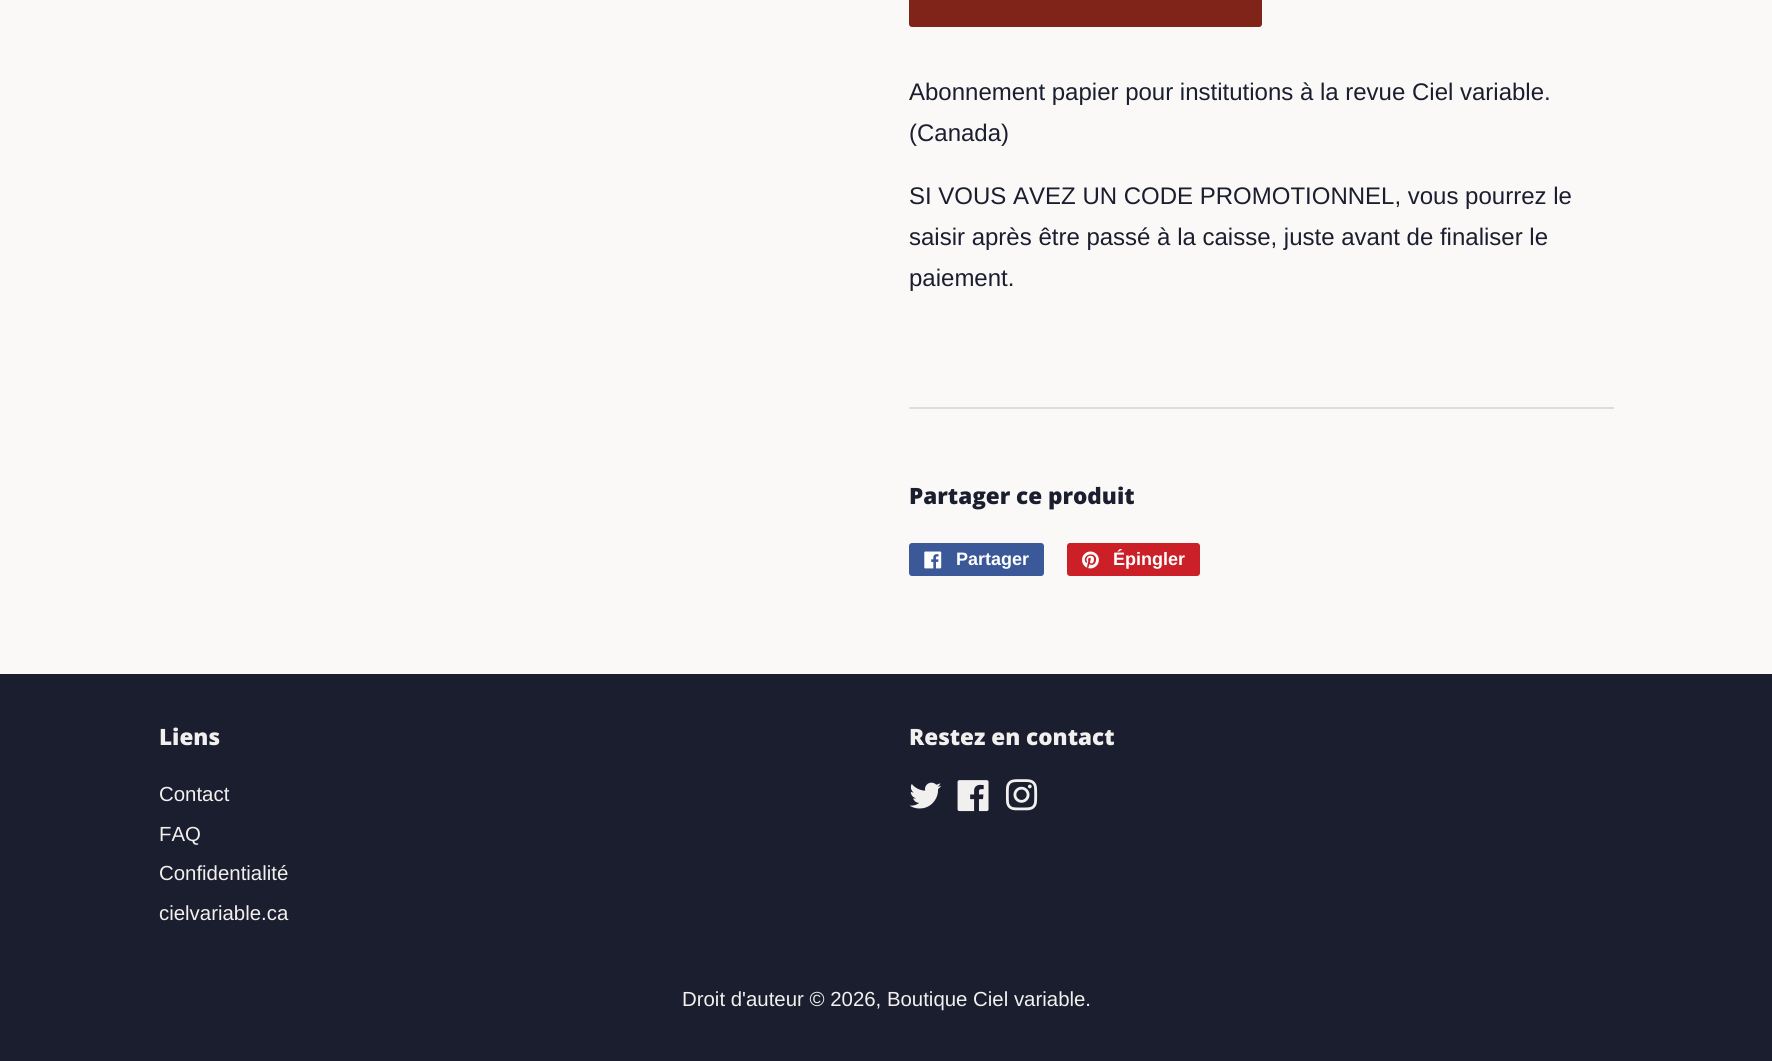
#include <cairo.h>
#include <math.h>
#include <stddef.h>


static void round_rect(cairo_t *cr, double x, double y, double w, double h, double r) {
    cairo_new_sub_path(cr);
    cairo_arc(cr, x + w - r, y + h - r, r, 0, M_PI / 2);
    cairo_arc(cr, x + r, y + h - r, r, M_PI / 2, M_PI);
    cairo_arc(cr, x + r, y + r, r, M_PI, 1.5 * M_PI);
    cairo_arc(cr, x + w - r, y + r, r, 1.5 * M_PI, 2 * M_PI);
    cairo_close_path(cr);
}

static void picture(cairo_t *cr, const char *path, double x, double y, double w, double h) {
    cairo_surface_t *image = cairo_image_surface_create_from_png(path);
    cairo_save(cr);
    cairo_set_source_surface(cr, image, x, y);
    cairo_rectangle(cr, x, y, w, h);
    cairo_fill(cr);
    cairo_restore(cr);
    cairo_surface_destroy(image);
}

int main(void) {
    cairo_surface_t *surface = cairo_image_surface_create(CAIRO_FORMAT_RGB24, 1772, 1061);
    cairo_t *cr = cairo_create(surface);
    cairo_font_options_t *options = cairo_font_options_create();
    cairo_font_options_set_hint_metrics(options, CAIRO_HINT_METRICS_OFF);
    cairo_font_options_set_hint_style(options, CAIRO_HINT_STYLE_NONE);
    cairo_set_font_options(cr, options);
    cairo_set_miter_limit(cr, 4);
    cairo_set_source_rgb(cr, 0.98, 0.976, 0.969);
    cairo_paint(cr);
    cairo_set_source_rgb(cr, 0.502, 0.137, 0.094);
    round_rect(cr, 909, -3, 353, 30, 3);
    cairo_fill(cr);
    cairo_select_font_face(cr, "Liberation Sans", CAIRO_FONT_SLANT_NORMAL, CAIRO_FONT_WEIGHT_NORMAL);
    cairo_set_font_size(cr, 24);
    cairo_set_source_rgb(cr, 0.106, 0.118, 0.184);
    cairo_move_to(cr, 909, 100);
    cairo_show_text(cr, "Abonnement papier pour institutions à la revue Ciel variable.");
    cairo_move_to(cr, 909, 141);
    cairo_show_text(cr, "(Canada)");
    cairo_move_to(cr, 909, 204);
    cairo_show_text(cr, "SI VOUS AVEZ UN CODE PROMOTIONNEL, vous pourrez le");
    cairo_move_to(cr, 909, 245);
    cairo_show_text(cr, "saisir après être passé à la caisse, juste avant de finaliser le");
    cairo_move_to(cr, 909, 286);
    cairo_show_text(cr, "paiement.");
    cairo_set_source_rgb(cr, 0.867, 0.867, 0.867);
    cairo_rectangle(cr, 909, 407, 705, 2);
    cairo_fill(cr);
    cairo_select_font_face(cr, "Open Sans ExtraBold", CAIRO_FONT_SLANT_NORMAL, CAIRO_FONT_WEIGHT_NORMAL);
    cairo_set_font_size(cr, 22.5);
    cairo_set_source_rgb(cr, 0.106, 0.118, 0.184);
    cairo_move_to(cr, 909, 504);
    cairo_show_text(cr, "Partager ce produit");
    cairo_set_source_rgb(cr, 0.231, 0.349, 0.596);
    round_rect(cr, 909, 543, 135, 33, 3);
    cairo_fill(cr);
    picture(cr, "img1.png", 924, 551, 18, 18);
    cairo_select_font_face(cr, "Liberation Sans", CAIRO_FONT_SLANT_NORMAL, CAIRO_FONT_WEIGHT_BOLD);
    cairo_set_font_size(cr, 18);
    cairo_set_source_rgb(cr, 1, 1, 1);
    cairo_move_to(cr, 956, 565);
    cairo_show_text(cr, "Partager");
    cairo_set_source_rgb(cr, 0.796, 0.125, 0.153);
    round_rect(cr, 1067, 543, 133, 33, 3);
    cairo_fill(cr);
    picture(cr, "img2.png", 1082, 551, 17, 18);
    cairo_set_source_rgb(cr, 1, 1, 1);
    cairo_move_to(cr, 1113, 565);
    cairo_show_text(cr, "Épingler");
    cairo_set_source_rgb(cr, 0.106, 0.118, 0.184);
    cairo_rectangle(cr, 0, 674, 1772, 387);
    cairo_fill(cr);
    cairo_select_font_face(cr, "Open Sans ExtraBold", CAIRO_FONT_SLANT_NORMAL, CAIRO_FONT_WEIGHT_NORMAL);
    cairo_set_font_size(cr, 22.5);
    cairo_set_source_rgb(cr, 0.949, 0.941, 0.933);
    cairo_move_to(cr, 159, 745);
    cairo_show_text(cr, "Liens");
    cairo_select_font_face(cr, "Liberation Sans", CAIRO_FONT_SLANT_NORMAL, CAIRO_FONT_WEIGHT_NORMAL);
    cairo_set_font_size(cr, 20.4);
    cairo_move_to(cr, 159, 801);
    cairo_show_text(cr, "Contact");
    cairo_move_to(cr, 159, 841);
    cairo_show_text(cr, "FAQ");
    cairo_move_to(cr, 159, 880);
    cairo_show_text(cr, "Confidentialité");
    cairo_move_to(cr, 159, 920);
    cairo_show_text(cr, "cielvariable.ca");
    cairo_select_font_face(cr, "Open Sans ExtraBold", CAIRO_FONT_SLANT_NORMAL, CAIRO_FONT_WEIGHT_NORMAL);
    cairo_set_font_size(cr, 22.5);
    cairo_move_to(cr, 909, 745);
    cairo_show_text(cr, "Restez en contact");
    picture(cr, "img3.png", 909, 782, 33, 27);
    picture(cr, "img4.png", 957, 780, 32, 32);
    picture(cr, "img5.png", 1005, 779, 33, 32);
    cairo_select_font_face(cr, "Liberation Sans", CAIRO_FONT_SLANT_NORMAL, CAIRO_FONT_WEIGHT_NORMAL);
    cairo_set_font_size(cr, 20.4);
    cairo_move_to(cr, 682, 1006);
    cairo_show_text(cr, "Droit d'auteur © 2026, Boutique Ciel variable.");
    cairo_surface_write_to_png(surface, "page.png");
    cairo_font_options_destroy(options);
    cairo_destroy(cr);
    cairo_surface_destroy(surface);
    return 0;
}
